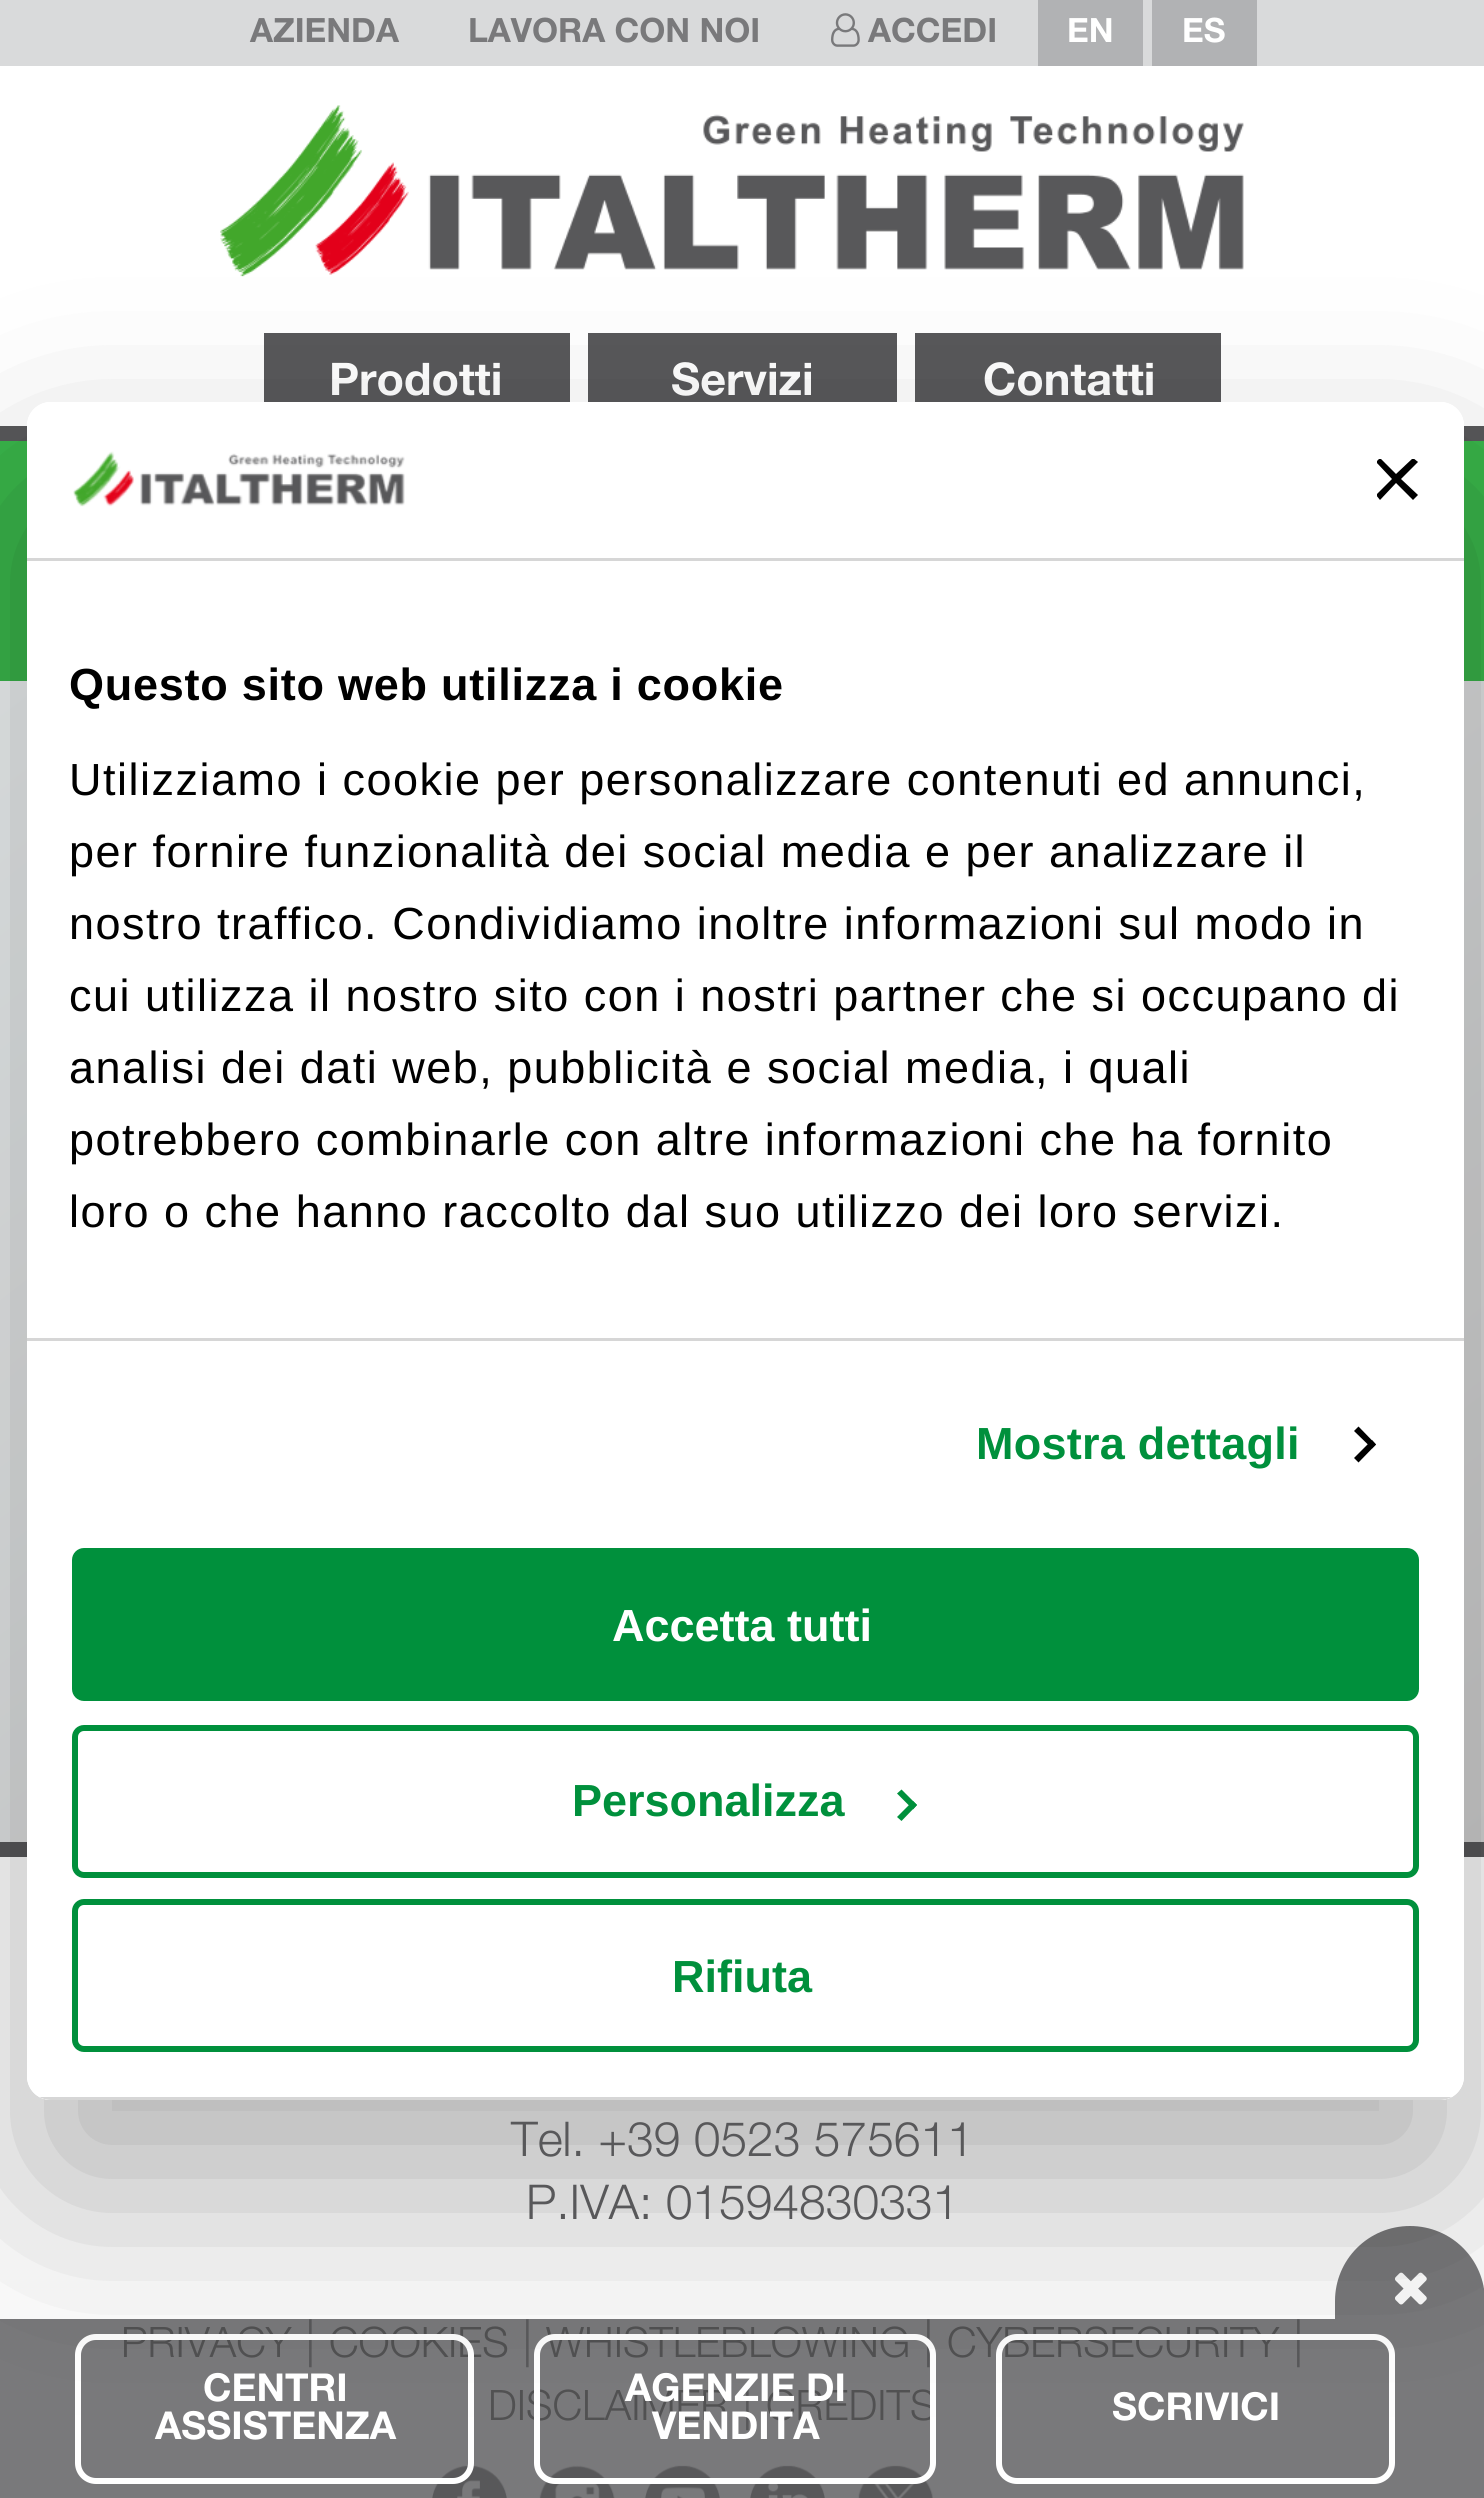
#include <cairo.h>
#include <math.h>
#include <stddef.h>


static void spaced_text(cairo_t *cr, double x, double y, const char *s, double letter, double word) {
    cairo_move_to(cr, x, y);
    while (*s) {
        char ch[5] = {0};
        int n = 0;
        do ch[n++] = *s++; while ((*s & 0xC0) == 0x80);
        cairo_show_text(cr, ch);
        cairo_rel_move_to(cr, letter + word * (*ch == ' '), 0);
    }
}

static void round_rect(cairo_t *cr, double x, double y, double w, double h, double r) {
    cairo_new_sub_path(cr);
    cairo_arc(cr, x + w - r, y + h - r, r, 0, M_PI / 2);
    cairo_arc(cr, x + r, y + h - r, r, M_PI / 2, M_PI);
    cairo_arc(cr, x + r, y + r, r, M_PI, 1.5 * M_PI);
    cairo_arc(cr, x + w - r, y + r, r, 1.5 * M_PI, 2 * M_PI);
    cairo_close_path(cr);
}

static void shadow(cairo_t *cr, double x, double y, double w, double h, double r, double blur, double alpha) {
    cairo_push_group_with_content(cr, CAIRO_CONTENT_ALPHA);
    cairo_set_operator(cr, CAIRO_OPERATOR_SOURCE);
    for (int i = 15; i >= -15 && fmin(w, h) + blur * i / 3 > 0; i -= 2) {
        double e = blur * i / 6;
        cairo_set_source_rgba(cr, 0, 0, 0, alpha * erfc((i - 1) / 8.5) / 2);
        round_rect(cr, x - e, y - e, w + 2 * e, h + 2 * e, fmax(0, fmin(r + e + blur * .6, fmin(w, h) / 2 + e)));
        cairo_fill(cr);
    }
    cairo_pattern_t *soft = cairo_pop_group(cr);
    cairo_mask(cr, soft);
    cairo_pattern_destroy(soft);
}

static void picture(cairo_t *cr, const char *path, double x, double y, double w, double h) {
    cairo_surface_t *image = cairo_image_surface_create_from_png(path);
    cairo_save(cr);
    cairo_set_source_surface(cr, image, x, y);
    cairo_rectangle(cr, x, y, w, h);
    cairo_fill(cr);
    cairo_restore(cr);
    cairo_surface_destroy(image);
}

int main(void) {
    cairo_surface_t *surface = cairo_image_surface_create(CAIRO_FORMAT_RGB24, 1484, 2498);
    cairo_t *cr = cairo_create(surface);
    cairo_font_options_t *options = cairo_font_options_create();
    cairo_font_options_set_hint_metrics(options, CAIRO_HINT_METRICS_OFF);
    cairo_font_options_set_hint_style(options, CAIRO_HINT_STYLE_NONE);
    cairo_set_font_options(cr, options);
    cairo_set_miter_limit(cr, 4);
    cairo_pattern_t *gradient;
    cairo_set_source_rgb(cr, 1, 1, 1);
    cairo_paint(cr);
    cairo_set_source_rgb(cr, 0.475, 0.475, 0.482);
    cairo_rectangle(cr, 0, 2319, 1484, 179);
    cairo_fill(cr);
    cairo_set_source_rgb(cr, 0.345, 0.345, 0.353);
    cairo_rectangle(cr, 0, 426, 1484, 15);
    cairo_fill(cr);
    cairo_set_source_rgb(cr, 0.851, 0.855, 0.859);
    cairo_rectangle(cr, 0, 0, 1484, 66);
    cairo_fill(cr);
    cairo_select_font_face(cr, "Helvetica Neue", CAIRO_FONT_SLANT_NORMAL, CAIRO_FONT_WEIGHT_BOLD);
    cairo_set_font_size(cr, 33.5);
    cairo_set_source_rgb(cr, 0.475, 0.475, 0.482);
    cairo_move_to(cr, 250, 42);
    cairo_show_text(cr, "AZIENDA");
    cairo_move_to(cr, 468, 42);
    cairo_show_text(cr, "LAVORA CON NOI");
    picture(cr, "img1.png", 831, 13, 29, 34);
    cairo_move_to(cr, 868, 42);
    cairo_show_text(cr, "ACCEDI");
    cairo_set_source_rgb(cr, 0.694, 0.698, 0.706);
    cairo_rectangle(cr, 1038, 0, 105, 66);
    cairo_fill(cr);
    cairo_set_source_rgb(cr, 1, 1, 1);
    cairo_move_to(cr, 1067, 42);
    cairo_show_text(cr, "EN");
    cairo_set_source_rgb(cr, 0.694, 0.698, 0.706);
    cairo_rectangle(cr, 1152, 0, 105, 66);
    cairo_fill(cr);
    cairo_set_source_rgb(cr, 1, 1, 1);
    cairo_move_to(cr, 1182, 42);
    cairo_show_text(cr, "ES");
    picture(cr, "img2.png", 220, 105, 1024, 172);
    cairo_set_source_rgb(cr, 0.345, 0.345, 0.353);
    cairo_rectangle(cr, 264, 333, 306, 69);
    cairo_fill(cr);
    cairo_set_font_size(cr, 45);
    cairo_set_source_rgb(cr, 1, 1, 1);
    cairo_move_to(cr, 329, 395);
    cairo_show_text(cr, "Prodotti");
    cairo_set_source_rgb(cr, 0.345, 0.345, 0.353);
    cairo_rectangle(cr, 588, 333, 309, 69);
    cairo_fill(cr);
    cairo_set_source_rgb(cr, 1, 1, 1);
    cairo_move_to(cr, 671, 395);
    cairo_show_text(cr, "Servizi");
    cairo_set_source_rgb(cr, 0.345, 0.345, 0.353);
    cairo_rectangle(cr, 915, 333, 306, 69);
    cairo_fill(cr);
    cairo_set_source_rgb(cr, 1, 1, 1);
    cairo_move_to(cr, 983, 395);
    cairo_show_text(cr, "Contatti");
    cairo_set_source_rgb(cr, 0.224, 0.71, 0.29);
    cairo_rectangle(cr, 0, 441, 1484, 240);
    cairo_fill(cr);
    gradient = cairo_pattern_create_linear(179, 541, 1306, 1982);
    cairo_pattern_add_color_stop_rgba(gradient, 0, 0.933, 0.949, 0.953, 1);
    cairo_pattern_add_color_stop_rgba(gradient, 1, 0.824, 0.824, 0.824, 1);
    cairo_set_source(cr, gradient);
    cairo_pattern_destroy(gradient);
    cairo_rectangle(cr, 0, 681, 1484, 1161);
    cairo_fill(cr);
    cairo_set_source_rgb(cr, 0.345, 0.345, 0.353);
    cairo_rectangle(cr, 0, 1842, 1484, 15);
    cairo_fill(cr);
    picture(cr, "img4.png", 432, 2465, 75, 33);
    picture(cr, "img5.png", 539, 2465, 76, 33);
    picture(cr, "img6.png", 645, 2465, 75, 33);
    picture(cr, "img7.png", 750, 2465, 75, 33);
    picture(cr, "img8.png", 858, 2465, 75, 33);
    cairo_set_source_rgb(cr, 0.475, 0.475, 0.482);
    cairo_new_path(cr);
    cairo_move_to(cr, 1410, 2226);
    cairo_curve_to(cr, 1451.5, 2226, 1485, 2259.5, 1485, 2301);
    cairo_line_to(cr, 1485, 2319);
    cairo_line_to(cr, 1335, 2319);
    cairo_line_to(cr, 1335, 2301);
    cairo_curve_to(cr, 1335, 2259.5, 1368.5, 2226, 1410, 2226);
    cairo_close_path(cr);
    cairo_fill(cr);
    picture(cr, "img9.png", 1395, 2272, 32, 33);
    cairo_select_font_face(cr, "Helvetica Neue Light", CAIRO_FONT_SLANT_NORMAL, CAIRO_FONT_WEIGHT_NORMAL);
    cairo_set_font_size(cr, 42);
    cairo_set_source_rgb(cr, 0.318, 0.318, 0.322);
    cairo_move_to(cr, 121, 2357);
    cairo_show_text(cr, "PRIVACY");
    cairo_set_font_size(cr, 48);
    cairo_set_source_rgb(cr, 0.345, 0.345, 0.353);
    cairo_move_to(cr, 305, 2357);
    cairo_show_text(cr, "|");
    cairo_set_font_size(cr, 42);
    cairo_set_source_rgb(cr, 0.318, 0.318, 0.322);
    cairo_move_to(cr, 329, 2357);
    cairo_show_text(cr, "COOKIES");
    round_rect(cr, 78, 2337, 393, 144, 18);
    cairo_set_source_rgb(cr, 1, 1, 1);
    cairo_set_line_width(cr, 6);
    cairo_stroke(cr);
    cairo_set_source_rgb(cr, 0.318, 0.318, 0.322);
    cairo_move_to(cr, 546, 2357);
    cairo_show_text(cr, "WHISTLEBLOWING");
    cairo_set_font_size(cr, 48);
    cairo_set_source_rgb(cr, 0.345, 0.345, 0.353);
    cairo_move_to(cr, 923, 2357);
    cairo_show_text(cr, "|");
    cairo_set_font_size(cr, 42);
    cairo_set_source_rgb(cr, 0.318, 0.318, 0.322);
    cairo_move_to(cr, 488, 2420);
    cairo_show_text(cr, "DISCLAIMER");
    cairo_move_to(cr, 766, 2420);
    cairo_show_text(cr, "CREDITS");
    round_rect(cr, 537, 2337, 396, 144, 18);
    cairo_set_source_rgb(cr, 1, 1, 1);
    cairo_stroke(cr);
    cairo_set_source_rgb(cr, 0.318, 0.318, 0.322);
    cairo_move_to(cr, 947, 2357);
    cairo_show_text(cr, "CYBERSECURITY");
    cairo_set_font_size(cr, 48);
    cairo_set_source_rgb(cr, 0.345, 0.345, 0.353);
    cairo_move_to(cr, 1293, 2357);
    cairo_show_text(cr, "|");
    round_rect(cr, 999, 2337, 393, 144, 18);
    cairo_set_source_rgb(cr, 1, 1, 1);
    cairo_stroke(cr);
    cairo_save(cr);
    cairo_set_fill_rule(cr, CAIRO_FILL_RULE_EVEN_ODD);
    cairo_new_path(cr);
    cairo_move_to(cr, 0, 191);
    cairo_line_to(cr, 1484, 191);
    cairo_line_to(cr, 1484, 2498);
    cairo_line_to(cr, 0, 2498);
    cairo_close_path(cr);
    cairo_move_to(cr, 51, 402);
    cairo_line_to(cr, 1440, 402);
    cairo_curve_to(cr, 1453.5, 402, 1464, 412.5, 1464, 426);
    cairo_line_to(cr, 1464, 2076);
    cairo_curve_to(cr, 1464, 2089.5, 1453.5, 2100, 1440, 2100);
    cairo_line_to(cr, 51, 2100);
    cairo_curve_to(cr, 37.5, 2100, 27, 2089.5, 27, 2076);
    cairo_line_to(cr, 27, 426);
    cairo_curve_to(cr, 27, 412.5, 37.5, 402, 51, 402);
    cairo_close_path(cr);
    cairo_clip(cr);
    cairo_set_source_rgb(cr, 0, 0, 0);
    shadow(cr, 27, 498, 1437, 1698, 24, 102, 0.3);
    cairo_restore(cr);
    round_rect(cr, 27, 402, 1437, 1698, 24);
    cairo_fill(cr);
    cairo_set_source_rgb(cr, 0.839, 0.839, 0.839);
    cairo_rectangle(cr, 27, 558, 1437, 3);
    cairo_fill(cr);
    picture(cr, "img3.png", 73, 451, 332, 56);
    cairo_save(cr);
    cairo_rectangle(cr, 1377, 459, 42, 42);
    cairo_clip(cr);
    cairo_set_source_rgb(cr, 0, 0, 0);
    cairo_new_path(cr);
    cairo_move_to(cr, 1418, 462);
    cairo_line_to(cr, 1413, 458);
    cairo_line_to(cr, 1396, 474);
    cairo_line_to(cr, 1380, 458);
    cairo_line_to(cr, 1376, 462);
    cairo_line_to(cr, 1392, 479);
    cairo_line_to(cr, 1376, 495);
    cairo_line_to(cr, 1380, 500);
    cairo_line_to(cr, 1396, 483);
    cairo_line_to(cr, 1413, 500);
    cairo_line_to(cr, 1418, 495);
    cairo_line_to(cr, 1401, 479);
    cairo_close_path(cr);
    cairo_fill(cr);
    cairo_restore(cr);
    cairo_rectangle(cr, 27, 1338, 1437, 3);
    cairo_fill(cr);
    cairo_select_font_face(cr, "Liberation Sans", CAIRO_FONT_SLANT_NORMAL, CAIRO_FONT_WEIGHT_BOLD);
    cairo_set_font_size(cr, 45);
    cairo_set_source_rgb(cr, 0, 0, 0);
    spaced_text(cr, 69, 700, "Questo sito web utilizza i cookie", 0.75, 0);
    cairo_select_font_face(cr, "Liberation Sans", CAIRO_FONT_SLANT_NORMAL, CAIRO_FONT_WEIGHT_NORMAL);
    spaced_text(cr, 69, 795, "Utilizziamo i cookie per personalizzare contenuti ed annunci,", 1.5, 0);
    spaced_text(cr, 69, 867, "per fornire funzionalità dei social media e per analizzare il", 1.5, 0);
    spaced_text(cr, 69, 939, "nostro traffico. Condividiamo inoltre informazioni sul modo in", 1.5, 0);
    spaced_text(cr, 69, 1011, "cui utilizza il nostro sito con i nostri partner che si occupano di", 1.5, 0);
    spaced_text(cr, 69, 1083, "analisi dei dati web, pubblicità e social media, i quali", 1.5, 0);
    spaced_text(cr, 69, 1155, "potrebbero combinarle con altre informazioni che ha fornito", 1.5, 0);
    spaced_text(cr, 69, 1227, "loro o che hanno raccolto dal suo utilizzo dei loro servizi.", 1.5, 0);
    cairo_select_font_face(cr, "Liberation Sans", CAIRO_FONT_SLANT_NORMAL, CAIRO_FONT_WEIGHT_BOLD);
    cairo_set_source_rgb(cr, 0, 0.565, 0.235);
    spaced_text(cr, 976, 1459, "Mostra dettagli", 0.25, 0);
    cairo_set_source_rgb(cr, 0, 0, 0);
    cairo_new_path(cr);
    cairo_move_to(cr, 1358.5, 1426.5);
    cairo_line_to(cr, 1376, 1444.5);
    cairo_line_to(cr, 1372, 1448.5);
    cairo_line_to(cr, 1354, 1431);
    cairo_close_path(cr);
    cairo_fill(cr);
    cairo_new_path(cr);
    cairo_move_to(cr, 1372, 1440);
    cairo_line_to(cr, 1376, 1444.5);
    cairo_line_to(cr, 1358.5, 1462.5);
    cairo_line_to(cr, 1354, 1458);
    cairo_close_path(cr);
    cairo_fill(cr);
    cairo_save(cr);
    round_rect(cr, 27, 402, 1437, 1698, 24);
    cairo_clip(cr);
    cairo_set_source_rgb(cr, 0.839, 0.839, 0.839);
    cairo_rectangle(cr, 39, 2097, 1413, 3);
    cairo_fill(cr);
    cairo_restore(cr);
    cairo_set_source_rgb(cr, 0, 0.565, 0.235);
    round_rect(cr, 75, 1551, 1341, 147, 9);
    cairo_fill_preserve(cr);
    cairo_stroke(cr);
    cairo_set_source_rgb(cr, 1, 1, 1);
    cairo_move_to(cr, 612, 1641);
    cairo_show_text(cr, "Accetta tutti");
    round_rect(cr, 75, 1728, 1341, 147, 9);
    cairo_set_source_rgb(cr, 0, 0.565, 0.235);
    cairo_stroke(cr);
    cairo_move_to(cr, 572, 1816);
    cairo_show_text(cr, "Personalizza");
    cairo_new_path(cr);
    cairo_move_to(cr, 901.5, 1789.5);
    cairo_line_to(cr, 917, 1805);
    cairo_line_to(cr, 913, 1809.5);
    cairo_line_to(cr, 897, 1793.5);
    cairo_close_path(cr);
    cairo_fill(cr);
    cairo_new_path(cr);
    cairo_move_to(cr, 913, 1801);
    cairo_line_to(cr, 917, 1805);
    cairo_line_to(cr, 901.5, 1821);
    cairo_line_to(cr, 897, 1817);
    cairo_close_path(cr);
    cairo_fill(cr);
    round_rect(cr, 75, 1902, 1341, 147, 9);
    cairo_stroke(cr);
    cairo_move_to(cr, 672, 1992);
    cairo_show_text(cr, "Rifiuta");
    cairo_select_font_face(cr, "Helvetica Neue Light", CAIRO_FONT_SLANT_NORMAL, CAIRO_FONT_WEIGHT_NORMAL);
    cairo_set_font_size(cr, 48);
    cairo_set_source_rgb(cr, 0.345, 0.345, 0.353);
    cairo_move_to(cr, 511, 2156);
    cairo_show_text(cr, "Tel. +39 0523 575611");
    cairo_move_to(cr, 526, 2219);
    cairo_show_text(cr, "P.IVA: 01594830331");
    cairo_move_to(cr, 522, 2357);
    cairo_show_text(cr, "|");
    cairo_move_to(cr, 742, 2420);
    cairo_show_text(cr, "|");
    cairo_select_font_face(cr, "Helvetica Neue", CAIRO_FONT_SLANT_NORMAL, CAIRO_FONT_WEIGHT_BOLD);
    cairo_set_font_size(cr, 38.5);
    cairo_set_source_rgb(cr, 1, 1, 1);
    cairo_move_to(cr, 203, 2401);
    cairo_show_text(cr, "CENTRI");
    cairo_move_to(cr, 155, 2439);
    cairo_show_text(cr, "ASSISTENZA");
    cairo_move_to(cr, 625, 2401);
    cairo_show_text(cr, "AGENZIE DI");
    cairo_move_to(cr, 652, 2439);
    cairo_show_text(cr, "VENDITA");
    cairo_move_to(cr, 1112, 2420);
    cairo_show_text(cr, "SCRIVICI");
    cairo_surface_write_to_png(surface, "page.png");
    cairo_font_options_destroy(options);
    cairo_destroy(cr);
    cairo_surface_destroy(surface);
    return 0;
}
